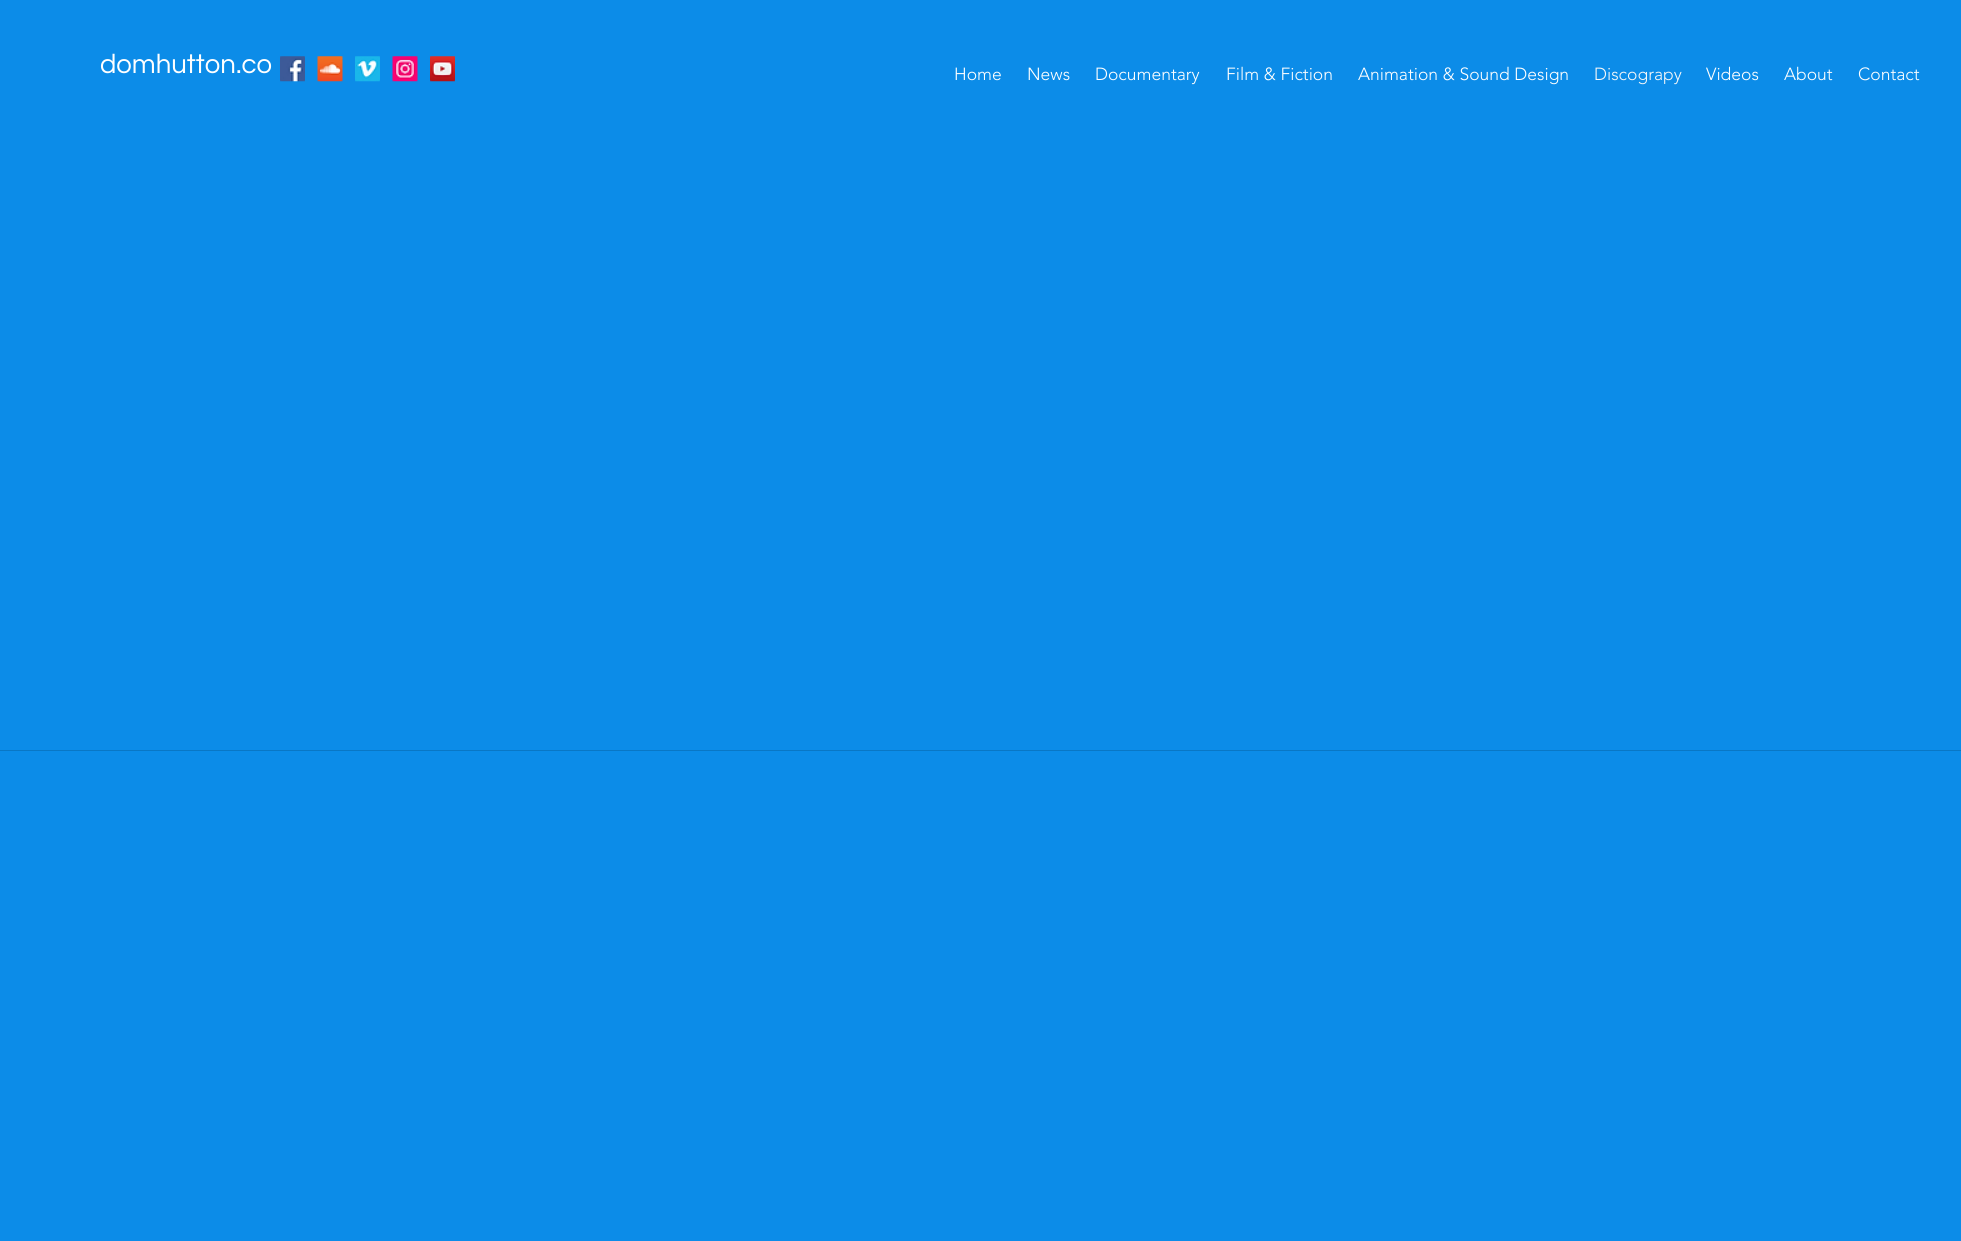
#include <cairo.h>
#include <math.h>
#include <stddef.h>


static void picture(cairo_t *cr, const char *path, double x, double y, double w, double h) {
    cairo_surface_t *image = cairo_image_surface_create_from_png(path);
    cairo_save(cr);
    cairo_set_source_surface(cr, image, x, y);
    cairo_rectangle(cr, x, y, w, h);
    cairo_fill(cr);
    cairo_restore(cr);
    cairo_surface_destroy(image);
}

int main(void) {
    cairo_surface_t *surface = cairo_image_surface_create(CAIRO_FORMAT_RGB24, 1961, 1241);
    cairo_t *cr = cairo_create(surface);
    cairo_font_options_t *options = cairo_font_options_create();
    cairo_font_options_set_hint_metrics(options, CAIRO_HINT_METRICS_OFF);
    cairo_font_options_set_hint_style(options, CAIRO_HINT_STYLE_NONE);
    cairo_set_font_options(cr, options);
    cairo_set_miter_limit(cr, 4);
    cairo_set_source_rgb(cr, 0.047, 0.549, 0.91);
    cairo_paint(cr);
    cairo_select_font_face(cr, "Questrial", CAIRO_FONT_SLANT_NORMAL, CAIRO_FONT_WEIGHT_NORMAL);
    cairo_set_font_size(cr, 27.5);
    cairo_set_source_rgb(cr, 1, 1, 1);
    cairo_move_to(cr, 100, 73);
    cairo_show_text(cr, "domhutton.co");
    picture(cr, "img1.png", 280, 56, 25, 26);
    picture(cr, "img2.png", 317, 56, 26, 26);
    picture(cr, "img3.png", 355, 56, 25, 26);
    picture(cr, "img4.png", 392, 56, 26, 26);
    picture(cr, "img5.png", 430, 56, 25, 26);
    cairo_select_font_face(cr, "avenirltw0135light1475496 Light", CAIRO_FONT_SLANT_NORMAL, CAIRO_FONT_WEIGHT_NORMAL);
    cairo_set_font_size(cr, 17.5);
    cairo_move_to(cr, 954, 80);
    cairo_show_text(cr, "Home");
    cairo_move_to(cr, 1027, 80);
    cairo_show_text(cr, "News");
    cairo_move_to(cr, 1095, 80);
    cairo_show_text(cr, "Documentary");
    cairo_move_to(cr, 1226, 80);
    cairo_show_text(cr, "Film & Fiction");
    cairo_move_to(cr, 1358, 80);
    cairo_show_text(cr, "Animation & Sound Design");
    cairo_set_source_rgb(cr, 0.969, 0.969, 0.969);
    cairo_move_to(cr, 1594, 80);
    cairo_show_text(cr, "Discograpy");
    cairo_set_source_rgb(cr, 1, 1, 1);
    cairo_move_to(cr, 1706, 80);
    cairo_show_text(cr, "Videos");
    cairo_move_to(cr, 1784, 80);
    cairo_show_text(cr, "About");
    cairo_move_to(cr, 1858, 80);
    cairo_show_text(cr, "Contact");
    cairo_set_source_rgb(cr, 0.039, 0.467, 0.773);
    cairo_rectangle(cr, 0, 750, 1961, 1);
    cairo_fill(cr);
    cairo_surface_write_to_png(surface, "page.png");
    cairo_font_options_destroy(options);
    cairo_destroy(cr);
    cairo_surface_destroy(surface);
    return 0;
}
